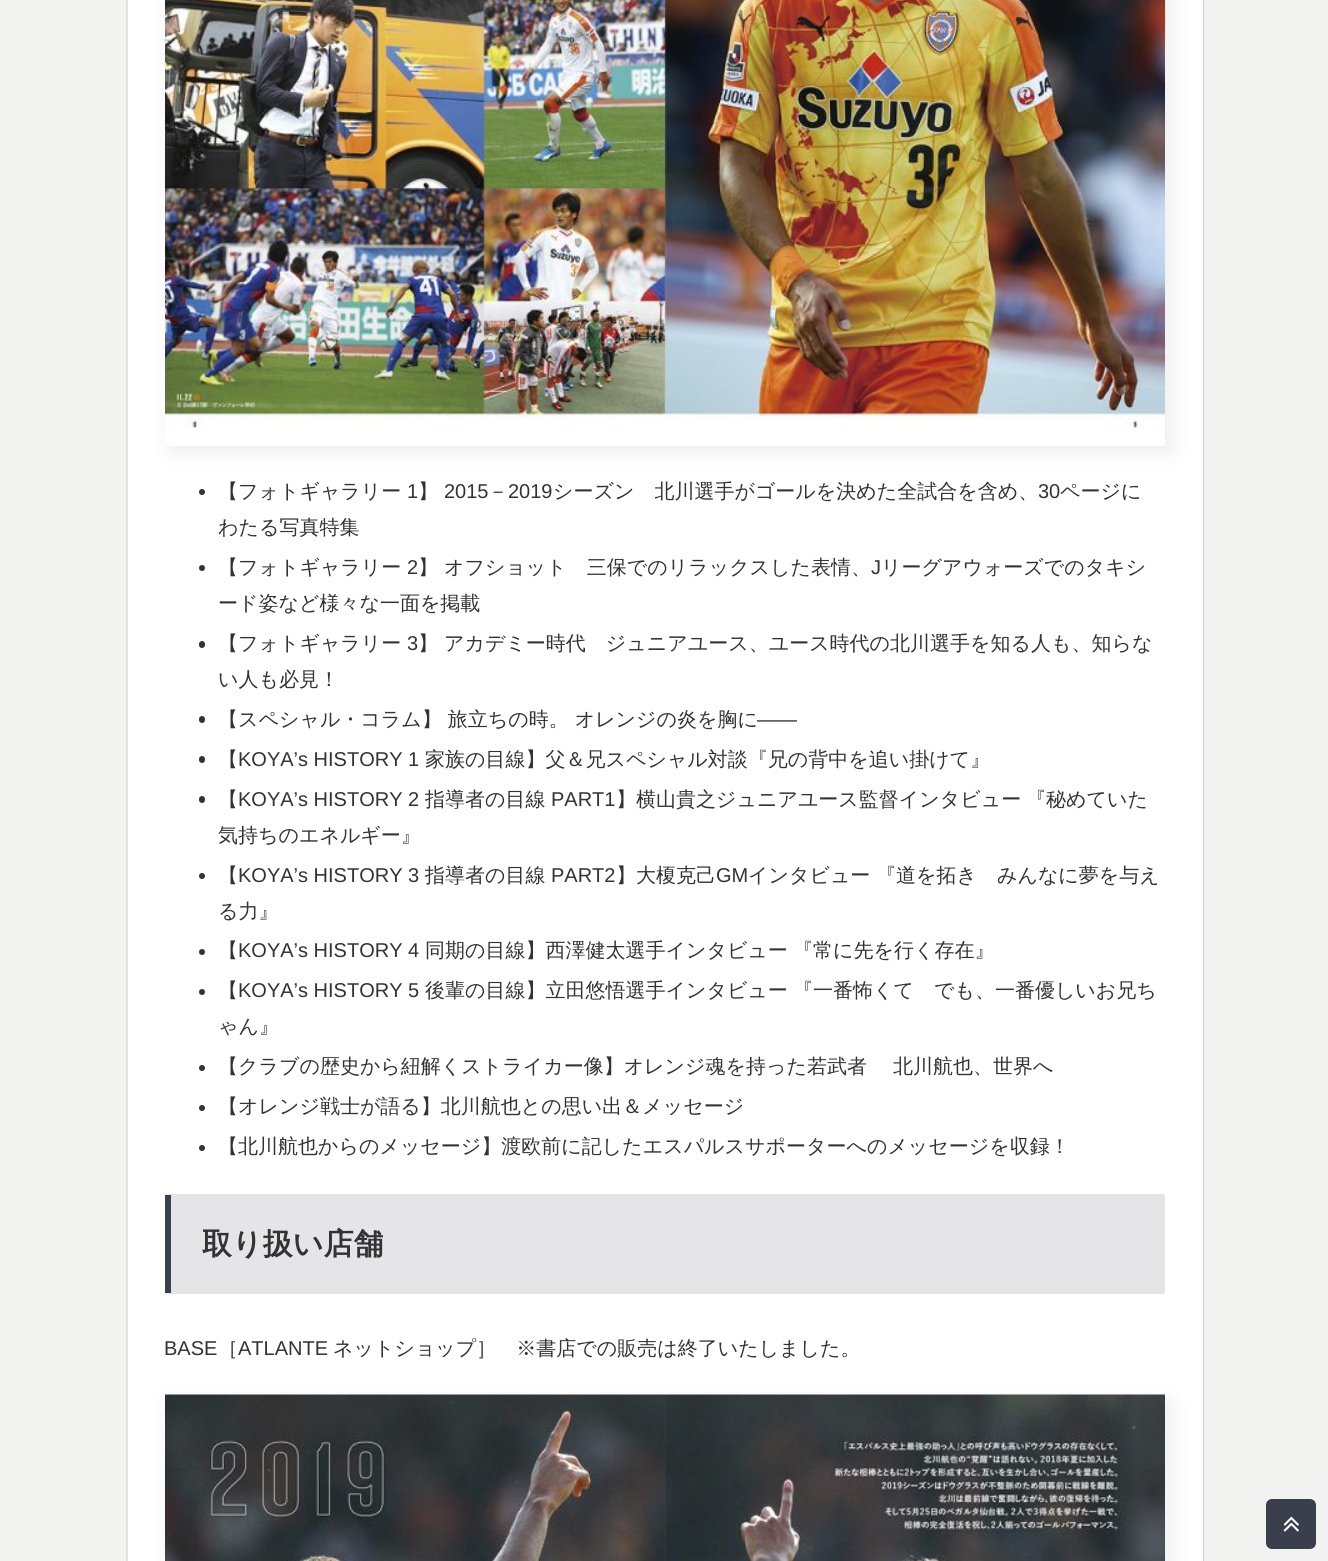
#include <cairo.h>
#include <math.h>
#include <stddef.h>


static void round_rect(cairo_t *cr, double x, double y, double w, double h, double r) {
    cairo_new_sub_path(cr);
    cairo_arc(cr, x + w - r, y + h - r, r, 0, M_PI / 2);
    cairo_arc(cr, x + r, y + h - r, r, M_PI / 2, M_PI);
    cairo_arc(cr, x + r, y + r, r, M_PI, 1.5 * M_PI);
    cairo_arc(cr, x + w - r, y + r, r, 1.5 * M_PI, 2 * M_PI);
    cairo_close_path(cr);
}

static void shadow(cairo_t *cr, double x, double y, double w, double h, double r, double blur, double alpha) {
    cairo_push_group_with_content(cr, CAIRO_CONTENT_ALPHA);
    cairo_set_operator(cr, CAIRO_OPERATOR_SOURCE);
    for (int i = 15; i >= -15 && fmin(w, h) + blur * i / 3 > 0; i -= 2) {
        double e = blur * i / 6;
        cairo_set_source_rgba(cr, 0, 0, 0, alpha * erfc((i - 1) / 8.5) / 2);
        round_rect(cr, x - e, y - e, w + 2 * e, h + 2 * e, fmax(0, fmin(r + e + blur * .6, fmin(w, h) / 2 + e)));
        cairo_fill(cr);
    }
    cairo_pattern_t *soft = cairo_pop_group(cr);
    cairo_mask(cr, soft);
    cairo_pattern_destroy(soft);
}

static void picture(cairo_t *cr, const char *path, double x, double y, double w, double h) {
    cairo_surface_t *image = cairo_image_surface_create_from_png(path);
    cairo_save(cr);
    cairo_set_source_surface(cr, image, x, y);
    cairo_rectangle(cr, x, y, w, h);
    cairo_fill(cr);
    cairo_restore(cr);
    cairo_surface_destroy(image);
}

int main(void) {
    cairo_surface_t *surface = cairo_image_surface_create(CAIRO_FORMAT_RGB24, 1328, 1561);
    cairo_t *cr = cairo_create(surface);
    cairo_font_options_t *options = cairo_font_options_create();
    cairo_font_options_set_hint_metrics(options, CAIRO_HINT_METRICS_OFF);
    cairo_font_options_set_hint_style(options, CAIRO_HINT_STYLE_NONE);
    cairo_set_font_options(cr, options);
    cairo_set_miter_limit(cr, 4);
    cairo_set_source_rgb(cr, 0.953, 0.953, 0.949);
    cairo_paint(cr);
    cairo_rectangle(cr, 126.5, -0.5, 1077, 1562);
    cairo_set_source_rgb(cr, 0.878, 0.878, 0.875);
    cairo_set_line_width(cr, 1);
    cairo_stroke(cr);
    cairo_set_source_rgb(cr, 0, 0, 0);
    shadow(cr, 128, -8, 1075, 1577, 5, 1, 0.16);
    cairo_set_source_rgb(cr, 1, 1, 1);
    cairo_rectangle(cr, 128, 0, 1075, 1561);
    cairo_fill(cr);
    cairo_save(cr);
    cairo_set_fill_rule(cr, CAIRO_FILL_RULE_EVEN_ODD);
    cairo_new_path(cr);
    cairo_move_to(cr, 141, 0);
    cairo_line_to(cr, 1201, 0);
    cairo_line_to(cr, 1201, 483);
    cairo_line_to(cr, 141, 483);
    cairo_close_path(cr);
    cairo_move_to(cr, 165, -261);
    cairo_line_to(cr, 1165, -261);
    cairo_line_to(cr, 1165, 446);
    cairo_line_to(cr, 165, 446);
    cairo_close_path(cr);
    cairo_clip(cr);
    cairo_set_source_rgb(cr, 0.933, 0.933, 0.933);
    shadow(cr, 171, -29, 1000, 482, 0, 9.5, 1);
    cairo_restore(cr);
    picture(cr, "img1.png", 165, 0, 1000, 429);
    cairo_set_source_rgb(cr, 0.2, 0.2, 0.2);
    cairo_arc(cr, 202, 492, 3, 0, 2 * M_PI);
    cairo_fill(cr);
    cairo_select_font_face(cr, "WenQuanYi Zen Hei Medium", CAIRO_FONT_SLANT_NORMAL, CAIRO_FONT_WEIGHT_NORMAL);
    cairo_set_font_size(cr, 20);
    cairo_move_to(cr, 218, 498);
    cairo_show_text(cr, "【フォトギャラリー");
    cairo_select_font_face(cr, "Liberation Sans", CAIRO_FONT_SLANT_NORMAL, CAIRO_FONT_WEIGHT_NORMAL);
    cairo_move_to(cr, 407, 498);
    cairo_show_text(cr, "1");
    cairo_select_font_face(cr, "WenQuanYi Zen Hei Medium", CAIRO_FONT_SLANT_NORMAL, CAIRO_FONT_WEIGHT_NORMAL);
    cairo_move_to(cr, 418, 498);
    cairo_show_text(cr, "】");
    cairo_select_font_face(cr, "Liberation Sans", CAIRO_FONT_SLANT_NORMAL, CAIRO_FONT_WEIGHT_NORMAL);
    cairo_move_to(cr, 444, 498);
    cairo_show_text(cr, "2015");
    cairo_select_font_face(cr, "WenQuanYi Zen Hei Medium", CAIRO_FONT_SLANT_NORMAL, CAIRO_FONT_WEIGHT_NORMAL);
    cairo_move_to(cr, 488, 498);
    cairo_show_text(cr, "－");
    cairo_select_font_face(cr, "Liberation Sans", CAIRO_FONT_SLANT_NORMAL, CAIRO_FONT_WEIGHT_NORMAL);
    cairo_move_to(cr, 508, 498);
    cairo_show_text(cr, "2019");
    cairo_select_font_face(cr, "WenQuanYi Zen Hei Medium", CAIRO_FONT_SLANT_NORMAL, CAIRO_FONT_WEIGHT_NORMAL);
    cairo_move_to(cr, 553, 498);
    cairo_show_text(cr, "シーズン　北川選手がゴールを決めた全試合を含め、");
    cairo_select_font_face(cr, "Liberation Sans", CAIRO_FONT_SLANT_NORMAL, CAIRO_FONT_WEIGHT_NORMAL);
    cairo_move_to(cr, 1038, 498);
    cairo_show_text(cr, "30");
    cairo_select_font_face(cr, "WenQuanYi Zen Hei Medium", CAIRO_FONT_SLANT_NORMAL, CAIRO_FONT_WEIGHT_NORMAL);
    cairo_move_to(cr, 1060, 498);
    cairo_show_text(cr, "ページに");
    cairo_move_to(cr, 218, 534);
    cairo_show_text(cr, "わたる写真特集");
    cairo_new_path(cr);
    cairo_arc(cr, 202, 568, 3, 0, 2 * M_PI);
    cairo_fill(cr);
    cairo_move_to(cr, 218, 574);
    cairo_show_text(cr, "【フォトギャラリー");
    cairo_select_font_face(cr, "Liberation Sans", CAIRO_FONT_SLANT_NORMAL, CAIRO_FONT_WEIGHT_NORMAL);
    cairo_move_to(cr, 407, 574);
    cairo_show_text(cr, "2");
    cairo_select_font_face(cr, "WenQuanYi Zen Hei Medium", CAIRO_FONT_SLANT_NORMAL, CAIRO_FONT_WEIGHT_NORMAL);
    cairo_move_to(cr, 418, 574);
    cairo_show_text(cr, "】 オフショット　三保でのリラックスした表情、");
    cairo_select_font_face(cr, "Liberation Sans", CAIRO_FONT_SLANT_NORMAL, CAIRO_FONT_WEIGHT_NORMAL);
    cairo_move_to(cr, 871, 574);
    cairo_show_text(cr, "J");
    cairo_select_font_face(cr, "WenQuanYi Zen Hei Medium", CAIRO_FONT_SLANT_NORMAL, CAIRO_FONT_WEIGHT_NORMAL);
    cairo_move_to(cr, 881, 574);
    cairo_show_text(cr, "リーグアウォーズでのタキシ");
    cairo_move_to(cr, 218, 610);
    cairo_show_text(cr, "ード姿など様々な一面を掲載");
    round_rect(cr, 199, 641, 6, 7, 3);
    cairo_fill(cr);
    cairo_move_to(cr, 218, 650);
    cairo_show_text(cr, "【フォトギャラリー");
    cairo_select_font_face(cr, "Liberation Sans", CAIRO_FONT_SLANT_NORMAL, CAIRO_FONT_WEIGHT_NORMAL);
    cairo_move_to(cr, 407, 650);
    cairo_show_text(cr, "3");
    cairo_select_font_face(cr, "WenQuanYi Zen Hei Medium", CAIRO_FONT_SLANT_NORMAL, CAIRO_FONT_WEIGHT_NORMAL);
    cairo_move_to(cr, 418, 650);
    cairo_show_text(cr, "】 アカデミー時代　ジュニアユース、ユース時代の北川選手を知る人も、知らな");
    cairo_move_to(cr, 218, 686);
    cairo_show_text(cr, "い人も必見！");
    round_rect(cr, 199, 716, 6, 7, 3);
    cairo_fill(cr);
    cairo_move_to(cr, 218, 726);
    cairo_show_text(cr, "【スペシャル・コラム】 旅立ちの時。 オレンジの炎を胸に");
    cairo_select_font_face(cr, "Liberation Sans", CAIRO_FONT_SLANT_NORMAL, CAIRO_FONT_WEIGHT_NORMAL);
    cairo_move_to(cr, 757, 726);
    cairo_show_text(cr, "――");
    round_rect(cr, 199, 756, 6, 7, 3);
    cairo_fill(cr);
    cairo_select_font_face(cr, "WenQuanYi Zen Hei Medium", CAIRO_FONT_SLANT_NORMAL, CAIRO_FONT_WEIGHT_NORMAL);
    cairo_move_to(cr, 218, 766);
    cairo_show_text(cr, "【");
    cairo_select_font_face(cr, "Liberation Sans", CAIRO_FONT_SLANT_NORMAL, CAIRO_FONT_WEIGHT_NORMAL);
    cairo_move_to(cr, 238, 766);
    cairo_show_text(cr, "KOYA’s HISTORY 1");
    cairo_select_font_face(cr, "WenQuanYi Zen Hei Medium", CAIRO_FONT_SLANT_NORMAL, CAIRO_FONT_WEIGHT_NORMAL);
    cairo_move_to(cr, 425, 766);
    cairo_show_text(cr, "家族の目線】父＆兄スペシャル対談『兄の背中を追い掛けて』");
    round_rect(cr, 199, 796, 6, 7, 3);
    cairo_fill(cr);
    cairo_move_to(cr, 218, 806);
    cairo_show_text(cr, "【");
    cairo_select_font_face(cr, "Liberation Sans", CAIRO_FONT_SLANT_NORMAL, CAIRO_FONT_WEIGHT_NORMAL);
    cairo_move_to(cr, 238, 806);
    cairo_show_text(cr, "KOYA’s HISTORY 2");
    cairo_select_font_face(cr, "WenQuanYi Zen Hei Medium", CAIRO_FONT_SLANT_NORMAL, CAIRO_FONT_WEIGHT_NORMAL);
    cairo_move_to(cr, 425, 806);
    cairo_show_text(cr, "指導者の目線");
    cairo_select_font_face(cr, "Liberation Sans", CAIRO_FONT_SLANT_NORMAL, CAIRO_FONT_WEIGHT_NORMAL);
    cairo_move_to(cr, 551, 806);
    cairo_show_text(cr, "PART1");
    cairo_select_font_face(cr, "WenQuanYi Zen Hei Medium", CAIRO_FONT_SLANT_NORMAL, CAIRO_FONT_WEIGHT_NORMAL);
    cairo_move_to(cr, 616, 806);
    cairo_show_text(cr, "】横山貴之ジュニアユース監督インタビュー");
    cairo_move_to(cr, 1026, 806);
    cairo_show_text(cr, "『秘めていた");
    cairo_move_to(cr, 218, 842);
    cairo_show_text(cr, "気持ちのエネルギー』");
    cairo_new_path(cr);
    cairo_arc(cr, 202, 876, 3, 0, 2 * M_PI);
    cairo_fill(cr);
    cairo_move_to(cr, 218, 882);
    cairo_show_text(cr, "【");
    cairo_select_font_face(cr, "Liberation Sans", CAIRO_FONT_SLANT_NORMAL, CAIRO_FONT_WEIGHT_NORMAL);
    cairo_move_to(cr, 238, 882);
    cairo_show_text(cr, "KOYA’s HISTORY 3");
    cairo_select_font_face(cr, "WenQuanYi Zen Hei Medium", CAIRO_FONT_SLANT_NORMAL, CAIRO_FONT_WEIGHT_NORMAL);
    cairo_move_to(cr, 425, 882);
    cairo_show_text(cr, "指導者の目線");
    cairo_select_font_face(cr, "Liberation Sans", CAIRO_FONT_SLANT_NORMAL, CAIRO_FONT_WEIGHT_NORMAL);
    cairo_move_to(cr, 551, 882);
    cairo_show_text(cr, "PART2");
    cairo_select_font_face(cr, "WenQuanYi Zen Hei Medium", CAIRO_FONT_SLANT_NORMAL, CAIRO_FONT_WEIGHT_NORMAL);
    cairo_move_to(cr, 616, 882);
    cairo_show_text(cr, "】大榎克己");
    cairo_select_font_face(cr, "Liberation Sans", CAIRO_FONT_SLANT_NORMAL, CAIRO_FONT_WEIGHT_NORMAL);
    cairo_move_to(cr, 716, 882);
    cairo_show_text(cr, "GM");
    cairo_select_font_face(cr, "WenQuanYi Zen Hei Medium", CAIRO_FONT_SLANT_NORMAL, CAIRO_FONT_WEIGHT_NORMAL);
    cairo_move_to(cr, 748, 882);
    cairo_show_text(cr, "インタビュー");
    cairo_move_to(cr, 876, 882);
    cairo_show_text(cr, "『道を拓き　みんなに夢を与え");
    cairo_move_to(cr, 218, 918);
    cairo_show_text(cr, "る力』");
    cairo_new_path(cr);
    cairo_arc(cr, 202, 952, 3, 0, 2 * M_PI);
    cairo_fill(cr);
    cairo_move_to(cr, 218, 957);
    cairo_show_text(cr, "【");
    cairo_select_font_face(cr, "Liberation Sans", CAIRO_FONT_SLANT_NORMAL, CAIRO_FONT_WEIGHT_NORMAL);
    cairo_move_to(cr, 238, 957);
    cairo_show_text(cr, "KOYA’s HISTORY 4");
    cairo_select_font_face(cr, "WenQuanYi Zen Hei Medium", CAIRO_FONT_SLANT_NORMAL, CAIRO_FONT_WEIGHT_NORMAL);
    cairo_move_to(cr, 425, 957);
    cairo_show_text(cr, "同期の目線】西澤健太選手インタビュー");
    cairo_move_to(cr, 793, 957);
    cairo_show_text(cr, "『常に先を行く存在』");
    cairo_new_path(cr);
    cairo_arc(cr, 202, 992, 3, 0, 2 * M_PI);
    cairo_fill(cr);
    cairo_move_to(cr, 218, 997);
    cairo_show_text(cr, "【");
    cairo_select_font_face(cr, "Liberation Sans", CAIRO_FONT_SLANT_NORMAL, CAIRO_FONT_WEIGHT_NORMAL);
    cairo_move_to(cr, 238, 997);
    cairo_show_text(cr, "KOYA’s HISTORY 5");
    cairo_select_font_face(cr, "WenQuanYi Zen Hei Medium", CAIRO_FONT_SLANT_NORMAL, CAIRO_FONT_WEIGHT_NORMAL);
    cairo_move_to(cr, 425, 997);
    cairo_show_text(cr, "後輩の目線】立田悠悟選手インタビュー");
    cairo_move_to(cr, 793, 997);
    cairo_show_text(cr, "『一番怖くて　でも、一番優しいお兄ち");
    cairo_move_to(cr, 218, 1033);
    cairo_show_text(cr, "ゃん』");
    cairo_new_path(cr);
    cairo_arc(cr, 202, 1068, 3, 0, 2 * M_PI);
    cairo_fill(cr);
    cairo_move_to(cr, 218, 1073);
    cairo_show_text(cr, "【クラブの歴史から紐解くストライカー像】オレンジ魂を持った若武者　 北川航也、世界へ");
    cairo_new_path(cr);
    cairo_arc(cr, 202, 1108, 3, 0, 2 * M_PI);
    cairo_fill(cr);
    cairo_move_to(cr, 218, 1113);
    cairo_show_text(cr, "【オレンジ戦士が語る】北川航也との思い出＆メッセージ");
    cairo_new_path(cr);
    cairo_arc(cr, 202, 1148, 3, 0, 2 * M_PI);
    cairo_fill(cr);
    cairo_move_to(cr, 218, 1153);
    cairo_show_text(cr, "【北川航也からのメッセージ】渡欧前に記したエスパルスサポーターへのメッセージを収録！");
    cairo_set_source_rgb(cr, 0.898, 0.894, 0.902);
    round_rect(cr, 165, 1194, 1000, 100, 2.5);
    cairo_fill(cr);
    cairo_set_source_rgb(cr, 0.224, 0.247, 0.298);
    cairo_rectangle(cr, 165, 1195, 6, 98);
    cairo_fill(cr);
    cairo_select_font_face(cr, "WenQuanYi Zen Hei", CAIRO_FONT_SLANT_NORMAL, CAIRO_FONT_WEIGHT_BOLD);
    cairo_set_font_size(cr, 30);
    cairo_set_source_rgb(cr, 0.2, 0.2, 0.2);
    cairo_move_to(cr, 202, 1254);
    cairo_show_text(cr, "取り扱い店舗");
    cairo_select_font_face(cr, "Liberation Sans", CAIRO_FONT_SLANT_NORMAL, CAIRO_FONT_WEIGHT_NORMAL);
    cairo_set_font_size(cr, 20);
    cairo_move_to(cr, 164, 1355);
    cairo_show_text(cr, "BASE");
    cairo_select_font_face(cr, "WenQuanYi Zen Hei Medium", CAIRO_FONT_SLANT_NORMAL, CAIRO_FONT_WEIGHT_NORMAL);
    cairo_move_to(cr, 218, 1355);
    cairo_show_text(cr, "［");
    cairo_select_font_face(cr, "Liberation Sans", CAIRO_FONT_SLANT_NORMAL, CAIRO_FONT_WEIGHT_NORMAL);
    cairo_move_to(cr, 238, 1355);
    cairo_show_text(cr, "ATLANTE");
    cairo_select_font_face(cr, "WenQuanYi Zen Hei Medium", CAIRO_FONT_SLANT_NORMAL, CAIRO_FONT_WEIGHT_NORMAL);
    cairo_move_to(cr, 333, 1355);
    cairo_show_text(cr, "ネットショップ］　※書店での販売は終了いたしました。");
    cairo_set_source_rgb(cr, 0.933, 0.933, 0.933);
    shadow(cr, 171, 1401, 1000, 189, 0, 9.5, 1);
    picture(cr, "img2.png", 165, 1394, 1000, 167);
    cairo_set_source_rgb(cr, 0.224, 0.247, 0.298);
    round_rect(cr, 1266, 1499, 50, 50, 6);
    cairo_fill(cr);
    picture(cr, "img3.png", 1283, 1516, 16, 16);
    cairo_surface_write_to_png(surface, "page.png");
    cairo_font_options_destroy(options);
    cairo_destroy(cr);
    cairo_surface_destroy(surface);
    return 0;
}
